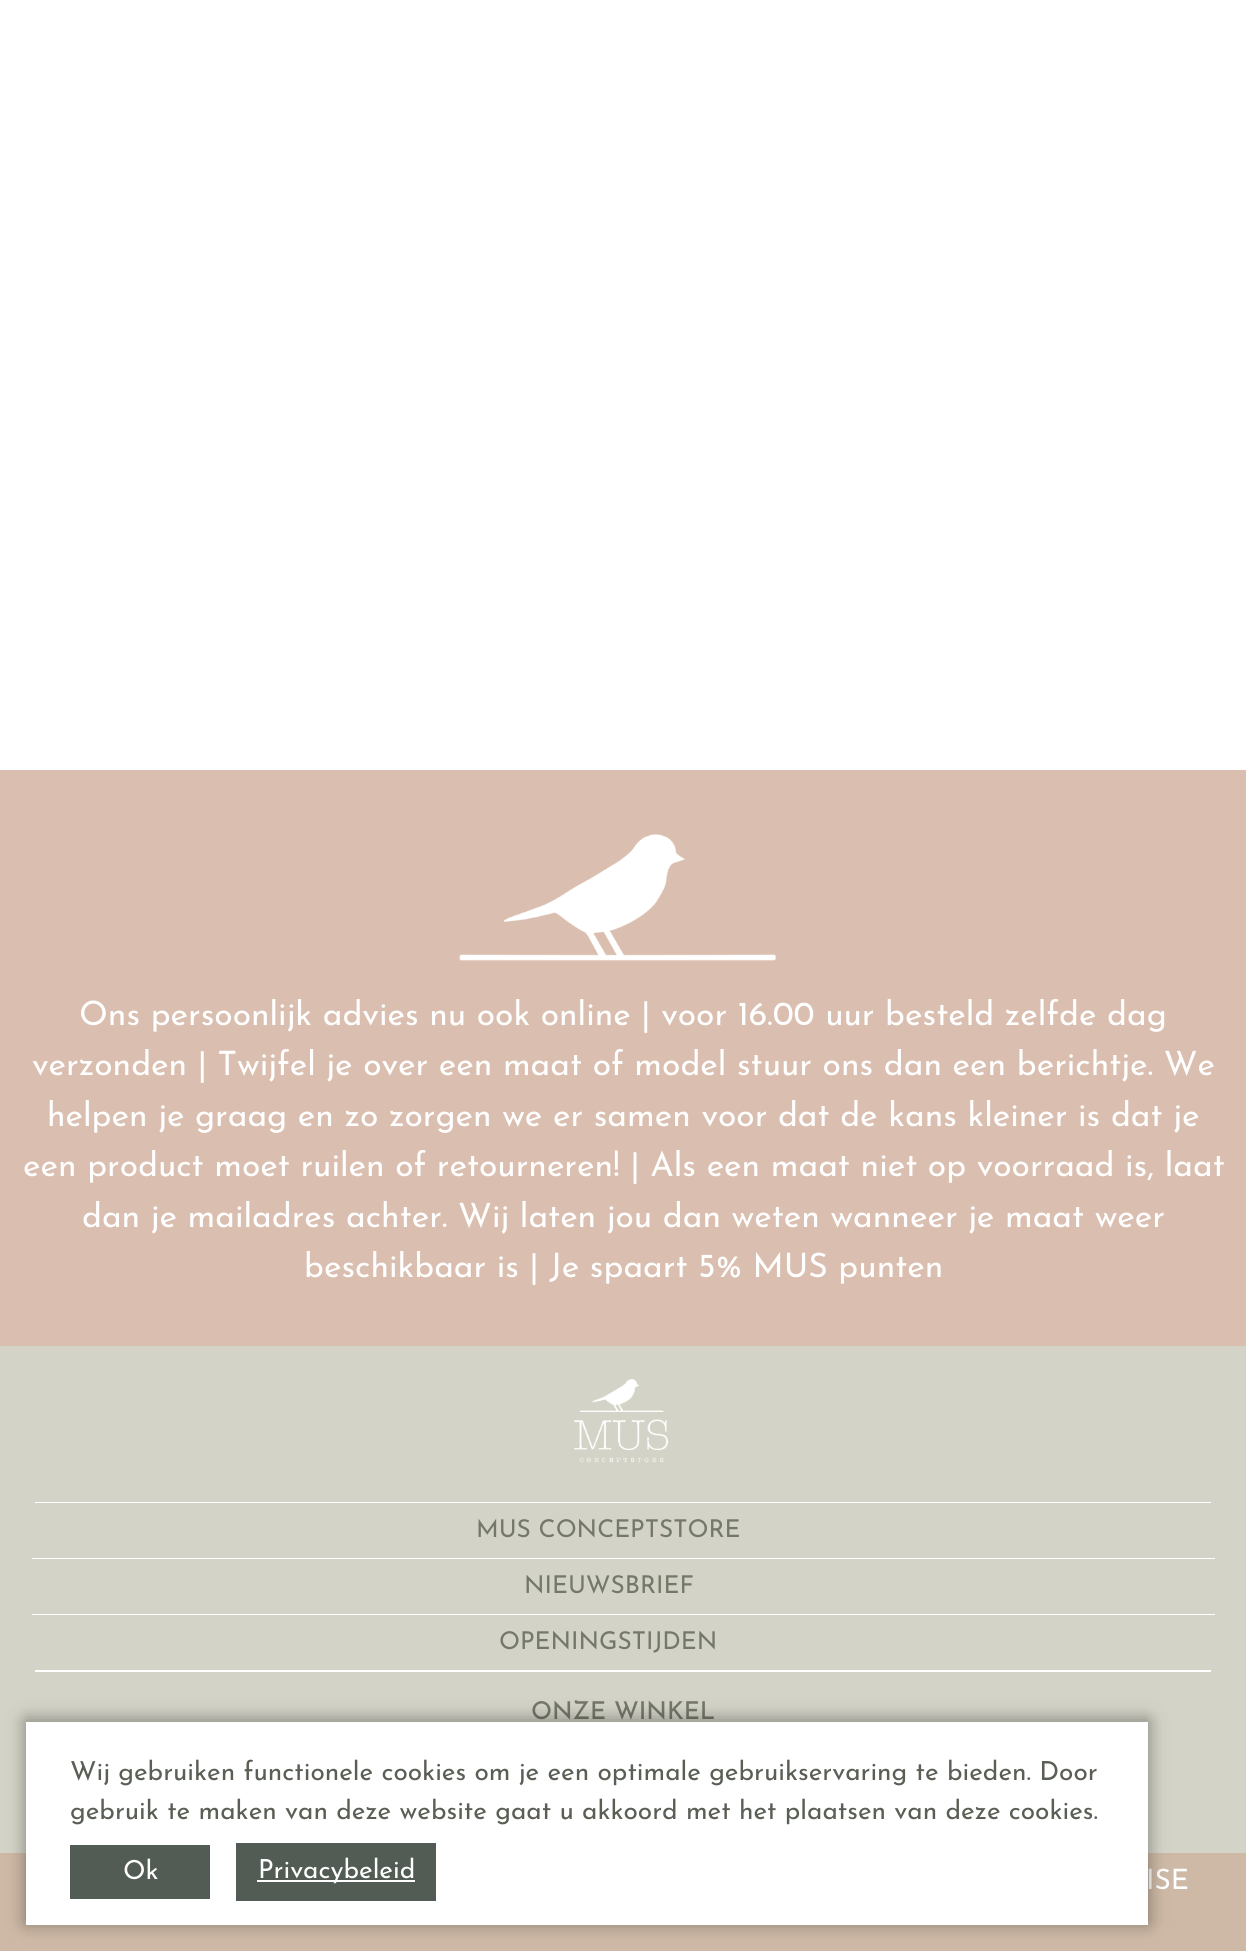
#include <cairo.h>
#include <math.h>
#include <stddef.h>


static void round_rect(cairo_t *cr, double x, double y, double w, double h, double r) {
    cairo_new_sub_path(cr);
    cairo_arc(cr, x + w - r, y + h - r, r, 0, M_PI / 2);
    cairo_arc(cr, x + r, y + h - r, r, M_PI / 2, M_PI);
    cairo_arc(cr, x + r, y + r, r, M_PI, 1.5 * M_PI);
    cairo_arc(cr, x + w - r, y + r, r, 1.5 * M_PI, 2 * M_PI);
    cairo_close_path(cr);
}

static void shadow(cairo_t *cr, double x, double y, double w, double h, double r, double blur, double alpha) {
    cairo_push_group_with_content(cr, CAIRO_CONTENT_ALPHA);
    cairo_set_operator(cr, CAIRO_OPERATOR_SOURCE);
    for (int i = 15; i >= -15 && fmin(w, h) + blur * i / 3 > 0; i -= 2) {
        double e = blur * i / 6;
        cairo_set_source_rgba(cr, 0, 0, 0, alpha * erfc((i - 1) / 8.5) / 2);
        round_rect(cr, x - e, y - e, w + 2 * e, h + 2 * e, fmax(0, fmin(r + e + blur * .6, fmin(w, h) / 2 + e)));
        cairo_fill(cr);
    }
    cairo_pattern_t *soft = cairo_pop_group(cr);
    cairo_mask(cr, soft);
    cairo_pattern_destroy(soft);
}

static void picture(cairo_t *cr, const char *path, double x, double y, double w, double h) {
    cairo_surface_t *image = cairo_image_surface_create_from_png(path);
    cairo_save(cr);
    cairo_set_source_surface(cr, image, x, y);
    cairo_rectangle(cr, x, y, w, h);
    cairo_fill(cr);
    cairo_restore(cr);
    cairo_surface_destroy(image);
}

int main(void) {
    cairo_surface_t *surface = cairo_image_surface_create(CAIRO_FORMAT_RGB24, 1246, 1951);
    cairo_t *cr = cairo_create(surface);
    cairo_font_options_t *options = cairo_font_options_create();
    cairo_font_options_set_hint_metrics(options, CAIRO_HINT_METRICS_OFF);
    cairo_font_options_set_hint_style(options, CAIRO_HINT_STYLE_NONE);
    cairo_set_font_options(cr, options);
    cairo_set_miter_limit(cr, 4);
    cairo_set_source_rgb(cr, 1, 1, 1);
    cairo_paint(cr);
    cairo_set_source_rgb(cr, 0.855, 0.745, 0.686);
    cairo_rectangle(cr, 0, 770, 1246, 576);
    cairo_fill(cr);
    picture(cr, "img1.png", 459, 834, 317, 127);
    cairo_select_font_face(cr, "Josefin Sans Thin", CAIRO_FONT_SLANT_NORMAL, CAIRO_FONT_WEIGHT_NORMAL);
    cairo_set_font_size(cr, 33.6);
    cairo_set_source_rgb(cr, 1, 1, 1);
    cairo_move_to(cr, 79, 1025);
    cairo_show_text(cr, "Ons persoonlijk advies nu ook online | voor 16.00 uur besteld zelfde dag");
    cairo_move_to(cr, 32, 1075);
    cairo_show_text(cr, "verzonden | Twijfel je over een maat of model stuur ons dan een berichtje. We");
    cairo_move_to(cr, 47, 1126);
    cairo_show_text(cr, "helpen je graag en zo zorgen we er samen voor dat de kans kleiner is dat je");
    cairo_move_to(cr, 23, 1176);
    cairo_show_text(cr, "een product moet ruilen of retourneren! | Als een maat niet op voorraad is, laat");
    cairo_move_to(cr, 82, 1227);
    cairo_show_text(cr, "dan je mailadres achter. Wij laten jou dan weten wanneer je maat weer");
    cairo_move_to(cr, 304, 1277);
    cairo_show_text(cr, "beschikbaar is | Je spaart 5% MUS punten");
    cairo_set_source_rgb(cr, 0.827, 0.827, 0.78);
    cairo_rectangle(cr, 0, 1346, 1246, 507);
    cairo_fill(cr);
    picture(cr, "img2.png", 574, 1379, 94, 84);
    cairo_set_source_rgb(cr, 1, 1, 1);
    cairo_rectangle(cr, 35, 1502, 1176, 1);
    cairo_fill(cr);
    cairo_set_font_size(cr, 24.5);
    cairo_set_source_rgb(cr, 0.455, 0.471, 0.412);
    cairo_move_to(cr, 476, 1537);
    cairo_show_text(cr, "MUS CONCEPTSTORE");
    cairo_set_source_rgb(cr, 1, 1, 1);
    cairo_rectangle(cr, 32, 1558, 1183, 1);
    cairo_fill(cr);
    cairo_set_source_rgb(cr, 0.455, 0.471, 0.412);
    cairo_move_to(cr, 524, 1593);
    cairo_show_text(cr, "NIEUWSBRIEF");
    cairo_set_source_rgb(cr, 1, 1, 1);
    cairo_rectangle(cr, 32, 1614, 1183, 1);
    cairo_fill(cr);
    cairo_rectangle(cr, 35, 1670, 1176, 2);
    cairo_fill(cr);
    cairo_set_source_rgb(cr, 0.455, 0.471, 0.412);
    cairo_move_to(cr, 499, 1649);
    cairo_show_text(cr, "OPENINGSTIJDEN");
    cairo_select_font_face(cr, "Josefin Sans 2 Thin", CAIRO_FONT_SLANT_NORMAL, CAIRO_FONT_WEIGHT_NORMAL);
    cairo_move_to(cr, 531, 1719);
    cairo_show_text(cr, "ONZE WINKEL");
    cairo_set_source_rgb(cr, 0.808, 0.725, 0.651);
    cairo_rectangle(cr, 0, 1853, 1246, 98);
    cairo_fill(cr);
    cairo_select_font_face(cr, "Josefin Sans Thin", CAIRO_FONT_SLANT_NORMAL, CAIRO_FONT_WEIGHT_NORMAL);
    cairo_set_font_size(cr, 28);
    cairo_set_source_rgb(cr, 1, 1, 1);
    cairo_move_to(cr, 1146, 1889);
    cairo_show_text(cr, "ISE");
    cairo_set_source_rgb(cr, 0, 0, 0);
    shadow(cr, 26, 1720, 1122, 203, 0, 9, 0.4);
    cairo_set_source_rgb(cr, 1, 1, 1);
    cairo_rectangle(cr, 26, 1722, 1122, 203);
    cairo_fill(cr);
    cairo_set_font_size(cr, 26.25);
    cairo_set_source_rgb(cr, 0.353, 0.373, 0.333);
    cairo_move_to(cr, 70, 1780);
    cairo_show_text(cr, "Wij gebruiken functionele cookies om je een optimale gebruikservaring te bieden. Door");
    cairo_move_to(cr, 70, 1819);
    cairo_show_text(cr, "gebruik te maken van deze website gaat u akkoord met het plaatsen van deze cookies.");
    cairo_set_source_rgb(cr, 0.325, 0.361, 0.329);
    cairo_rectangle(cr, 70, 1845, 140, 54);
    cairo_fill(cr);
    cairo_set_source_rgb(cr, 1, 1, 1);
    cairo_move_to(cr, 123, 1879);
    cairo_show_text(cr, "Ok");
    cairo_set_source_rgb(cr, 0.325, 0.361, 0.329);
    cairo_rectangle(cr, 236, 1843, 200, 58);
    cairo_fill(cr);
    cairo_set_source_rgb(cr, 1, 1, 1);
    cairo_rectangle(cr, 257, 1880, 158, 2);
    cairo_fill(cr);
    cairo_move_to(cr, 258, 1878);
    cairo_show_text(cr, "Privacybeleid");
    cairo_surface_write_to_png(surface, "page.png");
    cairo_font_options_destroy(options);
    cairo_destroy(cr);
    cairo_surface_destroy(surface);
    return 0;
}
